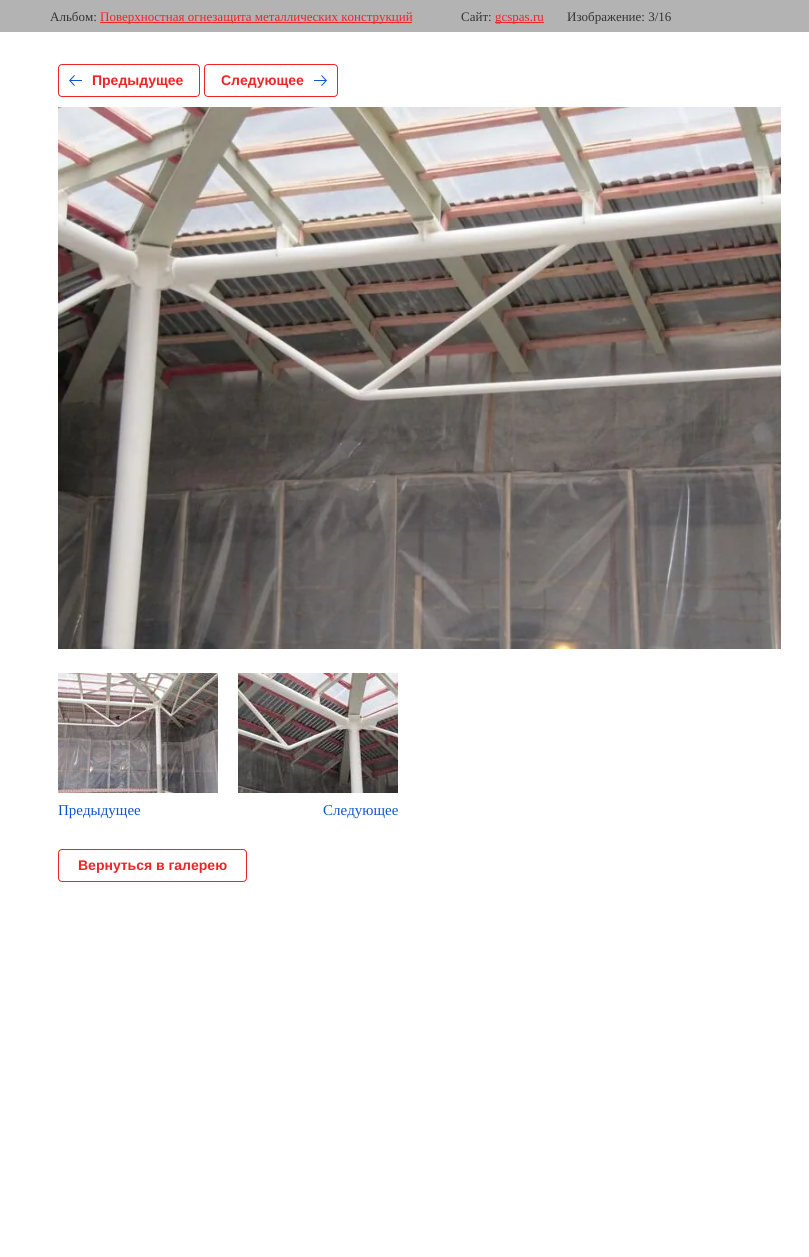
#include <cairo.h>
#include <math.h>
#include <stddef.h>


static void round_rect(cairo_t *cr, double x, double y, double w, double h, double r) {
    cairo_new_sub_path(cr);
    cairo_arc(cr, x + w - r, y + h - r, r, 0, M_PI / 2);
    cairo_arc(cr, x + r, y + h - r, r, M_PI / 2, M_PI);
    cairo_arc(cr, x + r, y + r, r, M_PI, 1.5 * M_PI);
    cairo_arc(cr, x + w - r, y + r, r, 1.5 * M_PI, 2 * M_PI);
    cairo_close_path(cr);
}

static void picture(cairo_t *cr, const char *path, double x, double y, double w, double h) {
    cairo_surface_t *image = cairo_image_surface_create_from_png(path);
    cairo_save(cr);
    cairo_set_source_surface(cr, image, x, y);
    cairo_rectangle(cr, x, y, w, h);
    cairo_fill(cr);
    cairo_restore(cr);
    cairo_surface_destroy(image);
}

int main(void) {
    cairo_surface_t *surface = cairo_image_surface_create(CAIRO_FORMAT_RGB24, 809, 1257);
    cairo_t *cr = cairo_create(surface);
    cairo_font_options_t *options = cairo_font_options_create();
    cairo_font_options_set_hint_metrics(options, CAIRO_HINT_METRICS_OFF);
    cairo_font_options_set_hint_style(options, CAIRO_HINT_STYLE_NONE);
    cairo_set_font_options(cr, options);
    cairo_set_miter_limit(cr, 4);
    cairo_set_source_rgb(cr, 1, 1, 1);
    cairo_paint(cr);
    cairo_set_source_rgb(cr, 0.702, 0.702, 0.702);
    cairo_rectangle(cr, 0, 0, 809, 32);
    cairo_fill(cr);
    cairo_select_font_face(cr, "Liberation Serif", CAIRO_FONT_SLANT_NORMAL, CAIRO_FONT_WEIGHT_NORMAL);
    cairo_set_font_size(cr, 13);
    cairo_set_source_rgb(cr, 0.2, 0.2, 0.2);
    cairo_move_to(cr, 50, 21);
    cairo_show_text(cr, "Альбом:");
    cairo_set_source_rgb(cr, 0.937, 0.141, 0.153);
    cairo_rectangle(cr, 100, 22, 312, 1);
    cairo_fill(cr);
    cairo_move_to(cr, 100, 21);
    cairo_show_text(cr, "Поверхностная огнезащита металлических конструкций");
    cairo_set_source_rgb(cr, 0.2, 0.2, 0.2);
    cairo_move_to(cr, 461, 21);
    cairo_show_text(cr, "Сайт:");
    cairo_set_source_rgb(cr, 0.937, 0.141, 0.153);
    cairo_rectangle(cr, 495, 22, 49, 1);
    cairo_fill(cr);
    cairo_move_to(cr, 495, 21);
    cairo_show_text(cr, "gcspas.ru");
    cairo_set_source_rgb(cr, 0.2, 0.2, 0.2);
    cairo_move_to(cr, 567, 21);
    cairo_show_text(cr, "Изображение: 3/16");
    round_rect(cr, 58.5, 64.5, 141, 32, 3.5);
    cairo_set_source_rgb(cr, 0.937, 0.141, 0.153);
    cairo_set_line_width(cr, 1);
    cairo_stroke(cr);
    picture(cr, "img1.png", 69, 75, 13, 11);
    cairo_select_font_face(cr, "Liberation Sans", CAIRO_FONT_SLANT_NORMAL, CAIRO_FONT_WEIGHT_BOLD);
    cairo_set_font_size(cr, 14);
    cairo_move_to(cr, 92, 85);
    cairo_show_text(cr, "Предыдущее");
    round_rect(cr, 204.5, 64.5, 133, 32, 3.5);
    cairo_stroke(cr);
    cairo_move_to(cr, 221, 85);
    cairo_show_text(cr, "Следующее");
    picture(cr, "img2.png", 314, 75, 13, 11);
    picture(cr, "img3.png", 58, 107, 723, 542);
    picture(cr, "img4.png", 58, 673, 160, 120);
    cairo_select_font_face(cr, "Liberation Serif", CAIRO_FONT_SLANT_NORMAL, CAIRO_FONT_WEIGHT_NORMAL);
    cairo_set_font_size(cr, 15);
    cairo_set_source_rgb(cr, 0.067, 0.333, 0.8);
    cairo_move_to(cr, 58, 815);
    cairo_show_text(cr, "Предыдущее");
    picture(cr, "img5.png", 238, 673, 160, 120);
    cairo_move_to(cr, 323, 815);
    cairo_show_text(cr, "Следующее");
    round_rect(cr, 58.5, 849.5, 188, 32, 3.5);
    cairo_set_source_rgb(cr, 0.937, 0.141, 0.153);
    cairo_stroke(cr);
    cairo_select_font_face(cr, "Liberation Sans", CAIRO_FONT_SLANT_NORMAL, CAIRO_FONT_WEIGHT_BOLD);
    cairo_set_font_size(cr, 14);
    cairo_move_to(cr, 78, 870);
    cairo_show_text(cr, "Вернуться в галерею");
    cairo_surface_write_to_png(surface, "page.png");
    cairo_font_options_destroy(options);
    cairo_destroy(cr);
    cairo_surface_destroy(surface);
    return 0;
}
